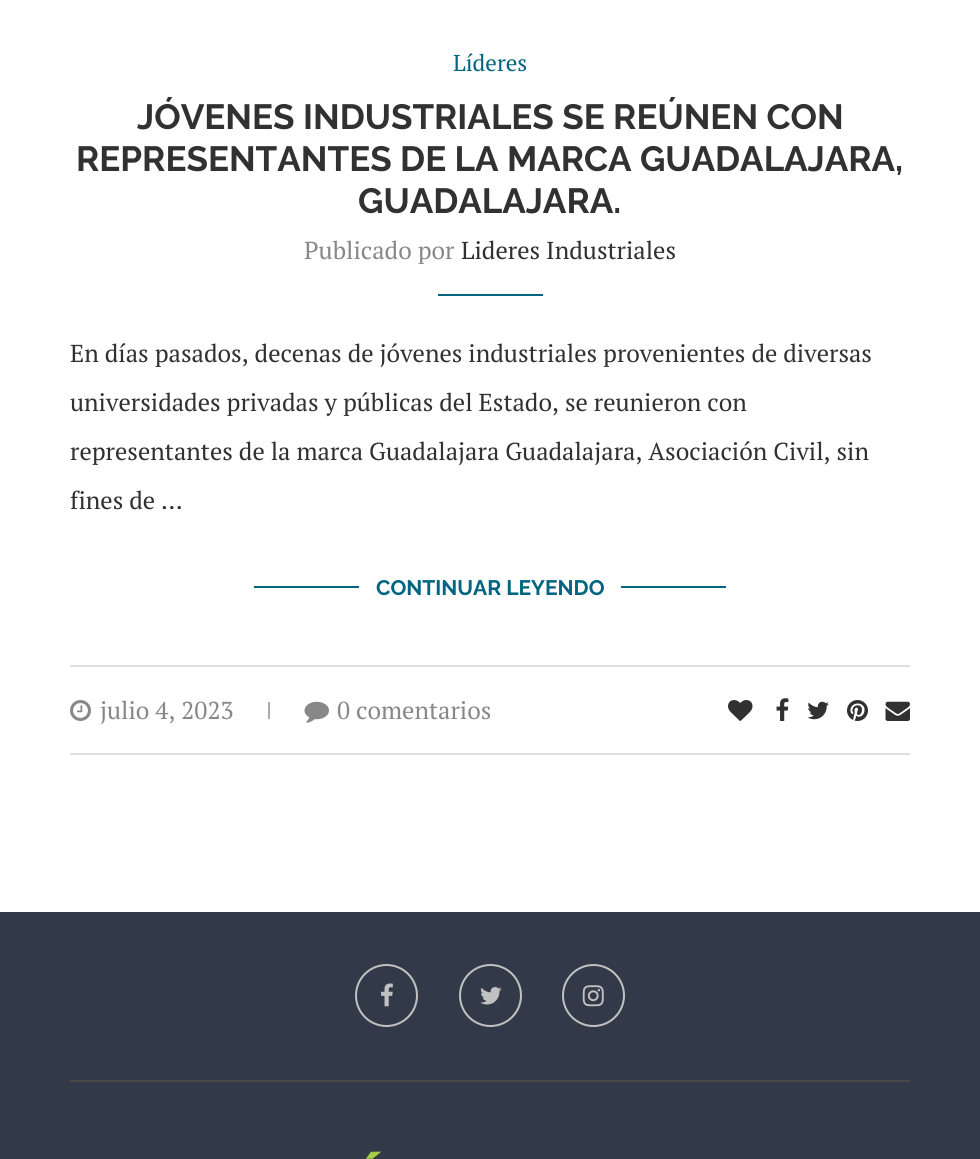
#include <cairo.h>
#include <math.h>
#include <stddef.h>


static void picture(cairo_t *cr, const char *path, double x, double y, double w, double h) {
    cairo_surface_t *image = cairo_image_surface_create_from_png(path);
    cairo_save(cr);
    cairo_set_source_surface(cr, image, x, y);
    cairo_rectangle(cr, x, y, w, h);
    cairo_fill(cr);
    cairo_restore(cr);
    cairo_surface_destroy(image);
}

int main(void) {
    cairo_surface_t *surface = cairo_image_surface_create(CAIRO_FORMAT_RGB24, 980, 1159);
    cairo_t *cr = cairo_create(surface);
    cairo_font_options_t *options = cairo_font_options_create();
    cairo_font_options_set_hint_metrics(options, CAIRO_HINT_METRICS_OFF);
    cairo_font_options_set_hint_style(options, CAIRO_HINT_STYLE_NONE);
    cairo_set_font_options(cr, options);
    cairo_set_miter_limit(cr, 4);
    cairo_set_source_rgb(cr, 1, 1, 1);
    cairo_paint(cr);
    cairo_select_font_face(cr, "PT Serif", CAIRO_FONT_SLANT_NORMAL, CAIRO_FONT_WEIGHT_NORMAL);
    cairo_set_font_size(cr, 23);
    cairo_set_source_rgb(cr, 0, 0.396, 0.498);
    cairo_move_to(cr, 453, 71);
    cairo_show_text(cr, "Líderes");
    cairo_select_font_face(cr, "Raleway", CAIRO_FONT_SLANT_NORMAL, CAIRO_FONT_WEIGHT_BOLD);
    cairo_set_font_size(cr, 35);
    cairo_set_source_rgb(cr, 0.192, 0.192, 0.192);
    cairo_move_to(cr, 137, 129);
    cairo_show_text(cr, "JÓVENES INDUSTRIALES SE REÚNEN CON");
    cairo_move_to(cr, 76, 171);
    cairo_show_text(cr, "REPRESENTANTES DE LA MARCA GUADALAJARA,");
    cairo_move_to(cr, 358, 213);
    cairo_show_text(cr, "GUADALAJARA.");
    cairo_select_font_face(cr, "PT Serif", CAIRO_FONT_SLANT_NORMAL, CAIRO_FONT_WEIGHT_NORMAL);
    cairo_set_font_size(cr, 24.5);
    cairo_set_source_rgb(cr, 0.533, 0.533, 0.533);
    cairo_move_to(cr, 304, 259);
    cairo_show_text(cr, "Publicado por");
    cairo_set_source_rgb(cr, 0.192, 0.192, 0.192);
    cairo_move_to(cr, 461, 259);
    cairo_show_text(cr, "Lideres Industriales");
    cairo_set_source_rgb(cr, 0, 0.396, 0.498);
    cairo_rectangle(cr, 438, 294, 105, 2);
    cairo_fill(cr);
    cairo_set_source_rgb(cr, 0.192, 0.192, 0.192);
    cairo_move_to(cr, 70, 362);
    cairo_show_text(cr, "En días pasados, decenas de jóvenes industriales provenientes de diversas");
    cairo_move_to(cr, 70, 411);
    cairo_show_text(cr, "universidades privadas y públicas del Estado, se reunieron con");
    cairo_move_to(cr, 70, 460);
    cairo_show_text(cr, "representantes de la marca Guadalajara Guadalajara, Asociación Civil, sin");
    cairo_move_to(cr, 70, 509);
    cairo_show_text(cr, "fines de …");
    cairo_set_source_rgb(cr, 0, 0.396, 0.498);
    cairo_rectangle(cr, 254, 586, 105, 2);
    cairo_fill(cr);
    cairo_select_font_face(cr, "Raleway", CAIRO_FONT_SLANT_NORMAL, CAIRO_FONT_WEIGHT_BOLD);
    cairo_set_font_size(cr, 21);
    cairo_move_to(cr, 376, 595);
    cairo_show_text(cr, "CONTINUAR LEYENDO");
    cairo_rectangle(cr, 621, 586, 105, 2);
    cairo_fill(cr);
    cairo_set_source_rgb(cr, 0.871, 0.871, 0.871);
    cairo_rectangle(cr, 70, 665, 840, 2);
    cairo_fill(cr);
    cairo_rectangle(cr, 70, 753, 840, 2);
    cairo_fill(cr);
    picture(cr, "img1.png", 70, 700, 21, 21);
    cairo_select_font_face(cr, "PT Serif", CAIRO_FONT_SLANT_NORMAL, CAIRO_FONT_WEIGHT_NORMAL);
    cairo_set_font_size(cr, 24.5);
    cairo_set_source_rgb(cr, 0.533, 0.533, 0.533);
    cairo_move_to(cr, 100, 719);
    cairo_show_text(cr, "julio 4, 2023");
    cairo_set_source_rgb(cr, 0.675, 0.675, 0.675);
    cairo_rectangle(cr, 268, 702, 2, 17);
    cairo_fill(cr);
    picture(cr, "img2.png", 304, 701, 25, 22);
    cairo_set_source_rgb(cr, 0.533, 0.533, 0.533);
    cairo_move_to(cr, 337, 719);
    cairo_show_text(cr, "0 comentarios");
    picture(cr, "img3.png", 728, 700, 25, 21);
    picture(cr, "img4.png", 776, 698, 13, 23);
    picture(cr, "img5.png", 807, 701, 22, 19);
    picture(cr, "img6.png", 847, 700, 21, 21);
    picture(cr, "img7.png", 885, 701, 25, 20);
    cairo_set_source_rgb(cr, 0.196, 0.227, 0.286);
    cairo_rectangle(cr, 0, 912, 980, 247);
    cairo_fill(cr);
    cairo_set_source_rgb(cr, 0.29, 0.29, 0.29);
    cairo_rectangle(cr, 70, 1080, 840, 2);
    cairo_fill(cr);
    cairo_arc(cr, 386.5, 995.5, 30.5, 0, 2 * M_PI);
    cairo_set_source_rgb(cr, 0.757, 0.757, 0.757);
    cairo_stroke(cr);
    picture(cr, "img8.png", 381, 983, 12, 24);
    cairo_arc(cr, 490.5, 995.5, 30.5, 0, 2 * M_PI);
    cairo_stroke(cr);
    picture(cr, "img9.png", 480, 987, 22, 18);
    cairo_arc(cr, 593.5, 995.5, 30.5, 0, 2 * M_PI);
    cairo_stroke(cr);
    picture(cr, "img10.png", 582, 985, 22, 22);
    picture(cr, "img11.png", 366, 1151, 16, 8);
    cairo_surface_write_to_png(surface, "page.png");
    cairo_font_options_destroy(options);
    cairo_destroy(cr);
    cairo_surface_destroy(surface);
    return 0;
}
